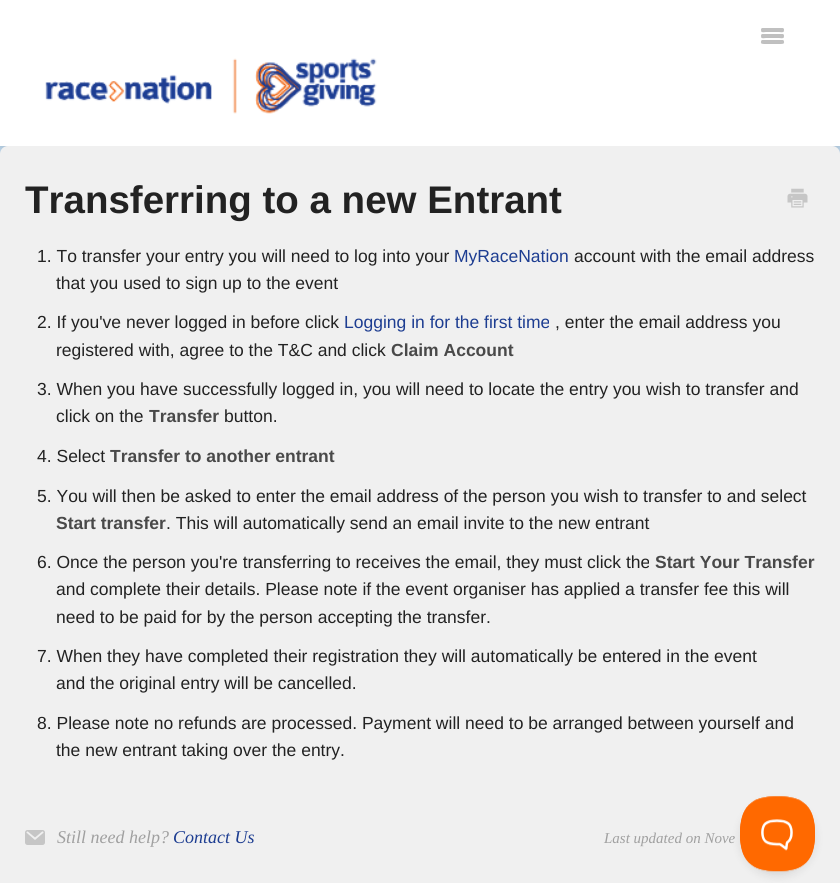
#include <cairo.h>
#include <math.h>
#include <stddef.h>


static void round_rect(cairo_t *cr, double x, double y, double w, double h, double r) {
    cairo_new_sub_path(cr);
    cairo_arc(cr, x + w - r, y + h - r, r, 0, M_PI / 2);
    cairo_arc(cr, x + r, y + h - r, r, M_PI / 2, M_PI);
    cairo_arc(cr, x + r, y + r, r, M_PI, 1.5 * M_PI);
    cairo_arc(cr, x + w - r, y + r, r, 1.5 * M_PI, 2 * M_PI);
    cairo_close_path(cr);
}

static void shadow(cairo_t *cr, double x, double y, double w, double h, double r, double blur, double alpha) {
    cairo_push_group_with_content(cr, CAIRO_CONTENT_ALPHA);
    cairo_set_operator(cr, CAIRO_OPERATOR_SOURCE);
    for (int i = 15; i >= -15 && fmin(w, h) + blur * i / 3 > 0; i -= 2) {
        double e = blur * i / 6;
        cairo_set_source_rgba(cr, 0, 0, 0, alpha * erfc((i - 1) / 8.5) / 2);
        round_rect(cr, x - e, y - e, w + 2 * e, h + 2 * e, fmax(0, fmin(r + e + blur * .6, fmin(w, h) / 2 + e)));
        cairo_fill(cr);
    }
    cairo_pattern_t *soft = cairo_pop_group(cr);
    cairo_mask(cr, soft);
    cairo_pattern_destroy(soft);
}

static void picture(cairo_t *cr, const char *path, double x, double y, double w, double h) {
    cairo_surface_t *image = cairo_image_surface_create_from_png(path);
    cairo_save(cr);
    cairo_set_source_surface(cr, image, x, y);
    cairo_rectangle(cr, x, y, w, h);
    cairo_fill(cr);
    cairo_restore(cr);
    cairo_surface_destroy(image);
}

int main(void) {
    cairo_surface_t *surface = cairo_image_surface_create(CAIRO_FORMAT_RGB24, 840, 883);
    cairo_t *cr = cairo_create(surface);
    cairo_font_options_t *options = cairo_font_options_create();
    cairo_font_options_set_hint_metrics(options, CAIRO_HINT_METRICS_OFF);
    cairo_font_options_set_hint_style(options, CAIRO_HINT_STYLE_NONE);
    cairo_set_font_options(cr, options);
    cairo_set_miter_limit(cr, 4);
    cairo_set_source_rgb(cr, 0.722, 0.82, 0.898);
    cairo_paint(cr);
    cairo_set_source_rgb(cr, 0, 0, 0);
    shadow(cr, 0, 1, 840, 147, 0, 2.5, 0.07);
    cairo_set_source_rgb(cr, 1, 1, 1);
    cairo_rectangle(cr, 0, 0, 840, 146);
    cairo_fill(cr);
    cairo_set_source_rgb(cr, 0.749, 0.749, 0.749);
    cairo_new_path(cr);
    cairo_move_to(cr, 761.5, 29.5);
    cairo_line_to(cr, 761, 31);
    cairo_curve_to(cr, 761.5, 33, 765, 32, 766, 32);
    cairo_line_to(cr, 779, 32);
    cairo_curve_to(cr, 780, 32, 783.5, 33, 784, 31);
    cairo_line_to(cr, 783.5, 29.5);
    cairo_line_to(cr, 782.5, 30);
    cairo_line_to(cr, 762.5, 30);
    cairo_close_path(cr);
    cairo_fill(cr);
    cairo_set_source_rgb(cr, 0.753, 0.753, 0.753);
    round_rect(cr, 761, 28, 23, 3, 1.5);
    cairo_fill(cr);
    cairo_set_source_rgb(cr, 0.749, 0.749, 0.749);
    cairo_new_path(cr);
    cairo_move_to(cr, 761.5, 35.5);
    cairo_line_to(cr, 761, 37);
    cairo_curve_to(cr, 761.5, 39, 765, 38, 766, 38);
    cairo_line_to(cr, 779, 38);
    cairo_curve_to(cr, 780, 38, 783.5, 39, 784, 37);
    cairo_line_to(cr, 783.5, 35.5);
    cairo_curve_to(cr, 783.5, 36, 783, 36, 782.5, 36);
    cairo_line_to(cr, 762.5, 36);
    cairo_curve_to(cr, 762, 36, 761.5, 36, 761.5, 35.5);
    cairo_close_path(cr);
    cairo_fill(cr);
    cairo_set_source_rgb(cr, 0.753, 0.753, 0.753);
    round_rect(cr, 761, 34, 23, 3, 1.5);
    cairo_fill(cr);
    cairo_set_source_rgb(cr, 0.749, 0.749, 0.749);
    cairo_new_path(cr);
    cairo_move_to(cr, 761.5, 41.5);
    cairo_curve_to(cr, 759, 44.5, 765.5, 44, 766, 44);
    cairo_line_to(cr, 779, 44);
    cairo_curve_to(cr, 779.5, 44, 786, 44.5, 783.5, 41.5);
    cairo_curve_to(cr, 783.5, 42, 783, 42.5, 782.5, 42.5);
    cairo_line_to(cr, 762.5, 42.5);
    cairo_curve_to(cr, 762, 42.5, 761.5, 42, 761.5, 41.5);
    cairo_close_path(cr);
    cairo_fill(cr);
    cairo_set_source_rgb(cr, 0.753, 0.753, 0.753);
    round_rect(cr, 761, 40, 23, 3, 1.5);
    cairo_fill(cr);
    picture(cr, "img1.png", 45, 58, 332, 56);
    cairo_set_source_rgb(cr, 0.941, 0.941, 0.941);
    round_rect(cr, 0, 146, 840, 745, 8);
    cairo_fill(cr);
    cairo_select_font_face(cr, "Liberation Sans", CAIRO_FONT_SLANT_NORMAL, CAIRO_FONT_WEIGHT_BOLD);
    cairo_set_font_size(cr, 38.5);
    cairo_set_source_rgb(cr, 0.133, 0.133, 0.133);
    cairo_move_to(cr, 25, 213);
    cairo_show_text(cr, "Transferring to a new Entrant");
    picture(cr, "img2.png", 787, 188, 21, 20);
    cairo_select_font_face(cr, "Liberation Sans", CAIRO_FONT_SLANT_NORMAL, CAIRO_FONT_WEIGHT_NORMAL);
    cairo_set_font_size(cr, 17.5);
    cairo_move_to(cr, 37, 262);
    cairo_show_text(cr, "1. To transfer your entry you will need to log into your");
    cairo_set_source_rgb(cr, 0.114, 0.239, 0.569);
    cairo_move_to(cr, 454, 262);
    cairo_show_text(cr, "MyRaceNation");
    cairo_set_source_rgb(cr, 0.133, 0.133, 0.133);
    cairo_move_to(cr, 574, 262);
    cairo_show_text(cr, "account with the email address");
    cairo_move_to(cr, 56, 289);
    cairo_show_text(cr, "that you used to sign up to the event");
    cairo_move_to(cr, 37, 328);
    cairo_show_text(cr, "2. If you've never logged in before click");
    cairo_set_source_rgb(cr, 0.114, 0.239, 0.569);
    cairo_move_to(cr, 344, 328);
    cairo_show_text(cr, "Logging in for the first time");
    cairo_set_source_rgb(cr, 0.133, 0.133, 0.133);
    cairo_move_to(cr, 555, 328);
    cairo_show_text(cr, ", enter the email address you");
    cairo_move_to(cr, 56, 356);
    cairo_show_text(cr, "registered with, agree to the T&C and click");
    cairo_select_font_face(cr, "Liberation Sans", CAIRO_FONT_SLANT_NORMAL, CAIRO_FONT_WEIGHT_BOLD);
    cairo_set_source_rgb(cr, 0.286, 0.286, 0.286);
    cairo_move_to(cr, 391, 356);
    cairo_show_text(cr, "Claim Account");
    cairo_select_font_face(cr, "Liberation Sans", CAIRO_FONT_SLANT_NORMAL, CAIRO_FONT_WEIGHT_NORMAL);
    cairo_set_source_rgb(cr, 0.133, 0.133, 0.133);
    cairo_move_to(cr, 37, 395);
    cairo_show_text(cr, "3. When you have successfully logged in, you will need to locate the entry you wish to transfer and");
    cairo_move_to(cr, 56, 422);
    cairo_show_text(cr, "click on the");
    cairo_select_font_face(cr, "Liberation Sans", CAIRO_FONT_SLANT_NORMAL, CAIRO_FONT_WEIGHT_BOLD);
    cairo_set_source_rgb(cr, 0.286, 0.286, 0.286);
    cairo_move_to(cr, 149, 422);
    cairo_show_text(cr, "Transfer");
    cairo_select_font_face(cr, "Liberation Sans", CAIRO_FONT_SLANT_NORMAL, CAIRO_FONT_WEIGHT_NORMAL);
    cairo_set_source_rgb(cr, 0.133, 0.133, 0.133);
    cairo_move_to(cr, 224, 422);
    cairo_show_text(cr, "button.");
    cairo_move_to(cr, 37, 462);
    cairo_show_text(cr, "4. Select");
    cairo_select_font_face(cr, "Liberation Sans", CAIRO_FONT_SLANT_NORMAL, CAIRO_FONT_WEIGHT_BOLD);
    cairo_set_source_rgb(cr, 0.286, 0.286, 0.286);
    cairo_move_to(cr, 110, 462);
    cairo_show_text(cr, "Transfer to another entrant");
    cairo_select_font_face(cr, "Liberation Sans", CAIRO_FONT_SLANT_NORMAL, CAIRO_FONT_WEIGHT_NORMAL);
    cairo_set_source_rgb(cr, 0.133, 0.133, 0.133);
    cairo_move_to(cr, 37, 502);
    cairo_show_text(cr, "5. You will then be asked to enter the email address of the person you wish to transfer to and select");
    cairo_select_font_face(cr, "Liberation Sans", CAIRO_FONT_SLANT_NORMAL, CAIRO_FONT_WEIGHT_BOLD);
    cairo_set_source_rgb(cr, 0.286, 0.286, 0.286);
    cairo_move_to(cr, 56, 529);
    cairo_show_text(cr, "Start transfer");
    cairo_select_font_face(cr, "Liberation Sans", CAIRO_FONT_SLANT_NORMAL, CAIRO_FONT_WEIGHT_NORMAL);
    cairo_set_source_rgb(cr, 0.133, 0.133, 0.133);
    cairo_move_to(cr, 166, 529);
    cairo_show_text(cr, ". This will automatically send an email invite to the new entrant");
    cairo_move_to(cr, 37, 568);
    cairo_show_text(cr, "6. Once the person you're transferring to receives the email, they must click the");
    cairo_select_font_face(cr, "Liberation Sans", CAIRO_FONT_SLANT_NORMAL, CAIRO_FONT_WEIGHT_BOLD);
    cairo_set_source_rgb(cr, 0.286, 0.286, 0.286);
    cairo_move_to(cr, 655, 568);
    cairo_show_text(cr, "Start Your Transfer");
    cairo_select_font_face(cr, "Liberation Sans", CAIRO_FONT_SLANT_NORMAL, CAIRO_FONT_WEIGHT_NORMAL);
    cairo_set_source_rgb(cr, 0.133, 0.133, 0.133);
    cairo_move_to(cr, 56, 595);
    cairo_show_text(cr, "and complete their details. Please note if the event organiser has applied a transfer fee this will");
    cairo_move_to(cr, 56, 623);
    cairo_show_text(cr, "need to be paid for by the person accepting the transfer.");
    cairo_move_to(cr, 37, 662);
    cairo_show_text(cr, "7. When they have completed their registration they will automatically be entered in the event");
    cairo_move_to(cr, 56, 689);
    cairo_show_text(cr, "and the original entry will be cancelled.");
    cairo_move_to(cr, 37, 729);
    cairo_show_text(cr, "8. Please note no refunds are processed. Payment will need to be arranged between yourself and");
    cairo_move_to(cr, 56, 756);
    cairo_show_text(cr, "the new entrant taking over the entry.");
    picture(cr, "img3.png", 25, 830, 20, 15);
    cairo_select_font_face(cr, "Liberation Serif", CAIRO_FONT_SLANT_ITALIC, CAIRO_FONT_WEIGHT_NORMAL);
    cairo_set_font_size(cr, 18);
    cairo_set_source_rgb(cr, 0.627, 0.627, 0.627);
    cairo_move_to(cr, 57, 843);
    cairo_show_text(cr, "Still need help?");
    cairo_set_source_rgb(cr, 0.114, 0.239, 0.569);
    cairo_move_to(cr, 173, 843);
    cairo_show_text(cr, "Contact Us");
    cairo_set_font_size(cr, 15);
    cairo_set_source_rgb(cr, 0.627, 0.627, 0.627);
    cairo_move_to(cr, 604, 843);
    cairo_show_text(cr, "Last updated on Nove");
    cairo_set_source_rgb(cr, 0, 0, 0);
    shadow(cr, 740, 801, 75, 75, 37.5, 4.5, 0.1);
    picture(cr, "img4.png", 740, 796, 75, 76);
    cairo_surface_write_to_png(surface, "page.png");
    cairo_font_options_destroy(options);
    cairo_destroy(cr);
    cairo_surface_destroy(surface);
    return 0;
}
